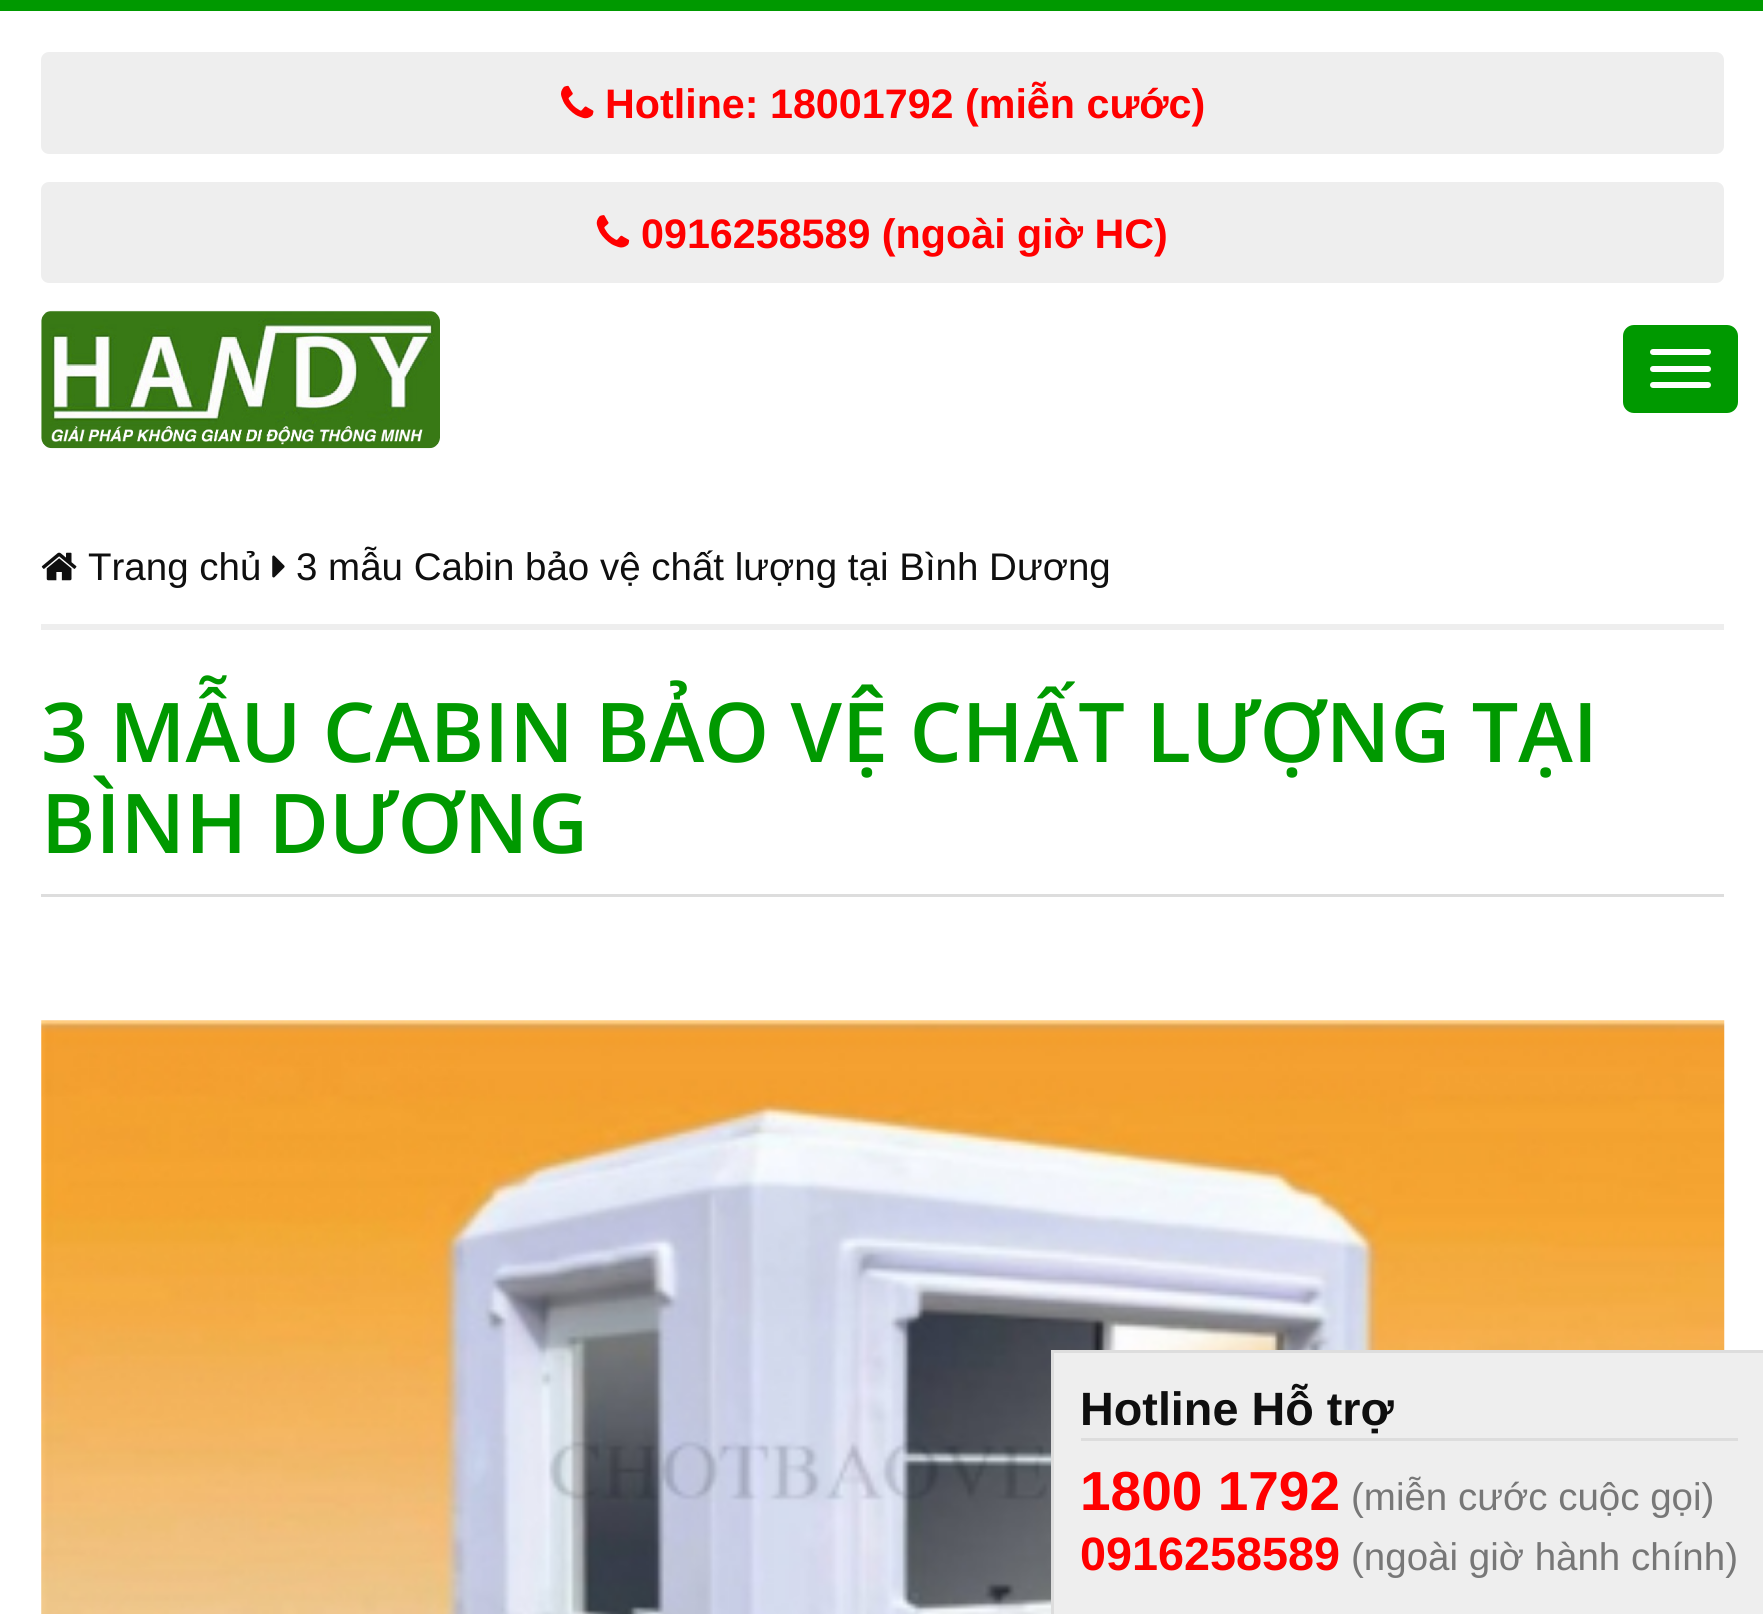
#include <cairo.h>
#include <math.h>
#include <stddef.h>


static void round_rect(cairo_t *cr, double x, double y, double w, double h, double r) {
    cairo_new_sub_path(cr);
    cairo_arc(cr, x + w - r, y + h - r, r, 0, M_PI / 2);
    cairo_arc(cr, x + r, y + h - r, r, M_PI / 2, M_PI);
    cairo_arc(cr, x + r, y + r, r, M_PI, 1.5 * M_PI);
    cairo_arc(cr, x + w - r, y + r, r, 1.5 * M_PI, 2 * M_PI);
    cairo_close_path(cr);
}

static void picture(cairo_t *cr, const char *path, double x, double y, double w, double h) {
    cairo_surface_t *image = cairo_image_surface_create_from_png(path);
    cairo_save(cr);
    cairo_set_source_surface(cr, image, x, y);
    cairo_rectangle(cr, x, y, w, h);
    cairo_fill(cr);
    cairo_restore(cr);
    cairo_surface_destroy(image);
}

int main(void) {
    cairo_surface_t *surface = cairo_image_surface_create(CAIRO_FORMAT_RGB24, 1763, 1614);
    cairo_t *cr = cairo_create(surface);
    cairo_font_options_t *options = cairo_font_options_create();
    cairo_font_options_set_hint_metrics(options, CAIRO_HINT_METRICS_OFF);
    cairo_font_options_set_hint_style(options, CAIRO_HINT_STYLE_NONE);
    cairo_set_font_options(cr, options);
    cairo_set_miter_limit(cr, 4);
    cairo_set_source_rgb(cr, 1, 1, 1);
    cairo_paint(cr);
    cairo_set_source_rgb(cr, 0, 0.6, 0);
    cairo_rectangle(cr, 0, 0, 1763, 11);
    cairo_fill(cr);
    cairo_set_source_rgb(cr, 0.933, 0.933, 0.933);
    round_rect(cr, 41, 52, 1683, 102, 8);
    cairo_fill(cr);
    picture(cr, "img1.png", 561, 85, 33, 34);
    cairo_select_font_face(cr, "Liberation Sans", CAIRO_FONT_SLANT_NORMAL, CAIRO_FONT_WEIGHT_BOLD);
    cairo_set_font_size(cr, 41.25);
    cairo_set_source_rgb(cr, 1, 0, 0);
    cairo_move_to(cr, 605, 118);
    cairo_show_text(cr, "Hotline: 18001792 (miễn cước)");
    cairo_set_source_rgb(cr, 0.933, 0.933, 0.933);
    round_rect(cr, 41, 182, 1683, 101, 8);
    cairo_fill(cr);
    picture(cr, "img2.png", 596, 215, 34, 33);
    cairo_set_source_rgb(cr, 1, 0, 0);
    cairo_move_to(cr, 641, 248);
    cairo_show_text(cr, "0916258589 (ngoài giờ HC)");
    picture(cr, "img3.png", 41, 310, 399, 139);
    cairo_set_source_rgb(cr, 0, 0.6, 0);
    round_rect(cr, 1623, 325, 115, 88, 11);
    cairo_fill(cr);
    cairo_set_source_rgb(cr, 1, 1, 1);
    round_rect(cr, 1650, 349, 61, 6, 3);
    cairo_fill(cr);
    round_rect(cr, 1650, 366, 61, 6, 3);
    cairo_fill(cr);
    round_rect(cr, 1650, 382, 61, 6, 3);
    cairo_fill(cr);
    cairo_set_source_rgb(cr, 0.933, 0.933, 0.933);
    cairo_rectangle(cr, 41, 624, 1683, 6);
    cairo_fill(cr);
    picture(cr, "img4.png", 41, 552, 36, 29);
    cairo_select_font_face(cr, "Liberation Sans", CAIRO_FONT_SLANT_NORMAL, CAIRO_FONT_WEIGHT_NORMAL);
    cairo_set_font_size(cr, 38.5);
    cairo_set_source_rgb(cr, 0.059, 0.059, 0.059);
    cairo_move_to(cr, 88, 580);
    cairo_show_text(cr, "Trang chủ");
    picture(cr, "img5.png", 272, 555, 13, 23);
    cairo_move_to(cr, 296, 580);
    cairo_show_text(cr, "3 mẫu Cabin bảo vệ chất lượng tại Bình Dương");
    cairo_set_source_rgb(cr, 0.867, 0.867, 0.867);
    cairo_rectangle(cr, 41, 894, 1683, 3);
    cairo_fill(cr);
    cairo_select_font_face(cr, "Open Sans SemiBold", CAIRO_FONT_SLANT_NORMAL, CAIRO_FONT_WEIGHT_NORMAL);
    cairo_set_font_size(cr, 82.5);
    cairo_set_source_rgb(cr, 0, 0.6, 0);
    cairo_move_to(cr, 41, 762);
    cairo_show_text(cr, "3 MẪU CABIN BẢO VỆ CHẤT LƯỢNG TẠI");
    cairo_move_to(cr, 41, 853);
    cairo_show_text(cr, "BÌNH DƯƠNG");
    picture(cr, "img6.png", 41, 1020, 1684, 594);
    cairo_set_source_rgb(cr, 0.933, 0.933, 0.933);
    cairo_rectangle(cr, 1054, 1353, 709, 261);
    cairo_fill(cr);
    cairo_set_source_rgb(cr, 0.867, 0.867, 0.867);
    cairo_rectangle(cr, 1051, 1350, 712, 3);
    cairo_fill(cr);
    cairo_rectangle(cr, 1051, 1350, 3, 264);
    cairo_fill(cr);
    cairo_rectangle(cr, 1081, 1438, 657, 3);
    cairo_fill(cr);
    cairo_select_font_face(cr, "Liberation Sans", CAIRO_FONT_SLANT_NORMAL, CAIRO_FONT_WEIGHT_BOLD);
    cairo_set_font_size(cr, 46.75);
    cairo_set_source_rgb(cr, 0.059, 0.059, 0.059);
    cairo_move_to(cr, 1080, 1425);
    cairo_show_text(cr, "Hotline Hỗ trợ");
    cairo_set_font_size(cr, 55);
    cairo_set_source_rgb(cr, 1, 0, 0);
    cairo_move_to(cr, 1080, 1510);
    cairo_show_text(cr, "1800 1792");
    cairo_select_font_face(cr, "Liberation Sans", CAIRO_FONT_SLANT_NORMAL, CAIRO_FONT_WEIGHT_NORMAL);
    cairo_set_font_size(cr, 38.5);
    cairo_set_source_rgb(cr, 0.467, 0.467, 0.467);
    cairo_move_to(cr, 1351, 1510);
    cairo_show_text(cr, "(miễn cước cuộc gọi)");
    cairo_select_font_face(cr, "Liberation Sans", CAIRO_FONT_SLANT_NORMAL, CAIRO_FONT_WEIGHT_BOLD);
    cairo_set_font_size(cr, 46.75);
    cairo_set_source_rgb(cr, 1, 0, 0);
    cairo_move_to(cr, 1080, 1570);
    cairo_show_text(cr, "0916258589");
    cairo_select_font_face(cr, "Liberation Sans", CAIRO_FONT_SLANT_NORMAL, CAIRO_FONT_WEIGHT_NORMAL);
    cairo_set_font_size(cr, 38.5);
    cairo_set_source_rgb(cr, 0.467, 0.467, 0.467);
    cairo_move_to(cr, 1351, 1570);
    cairo_show_text(cr, "(ngoài giờ hành chính)");
    cairo_surface_write_to_png(surface, "page.png");
    cairo_font_options_destroy(options);
    cairo_destroy(cr);
    cairo_surface_destroy(surface);
    return 0;
}
